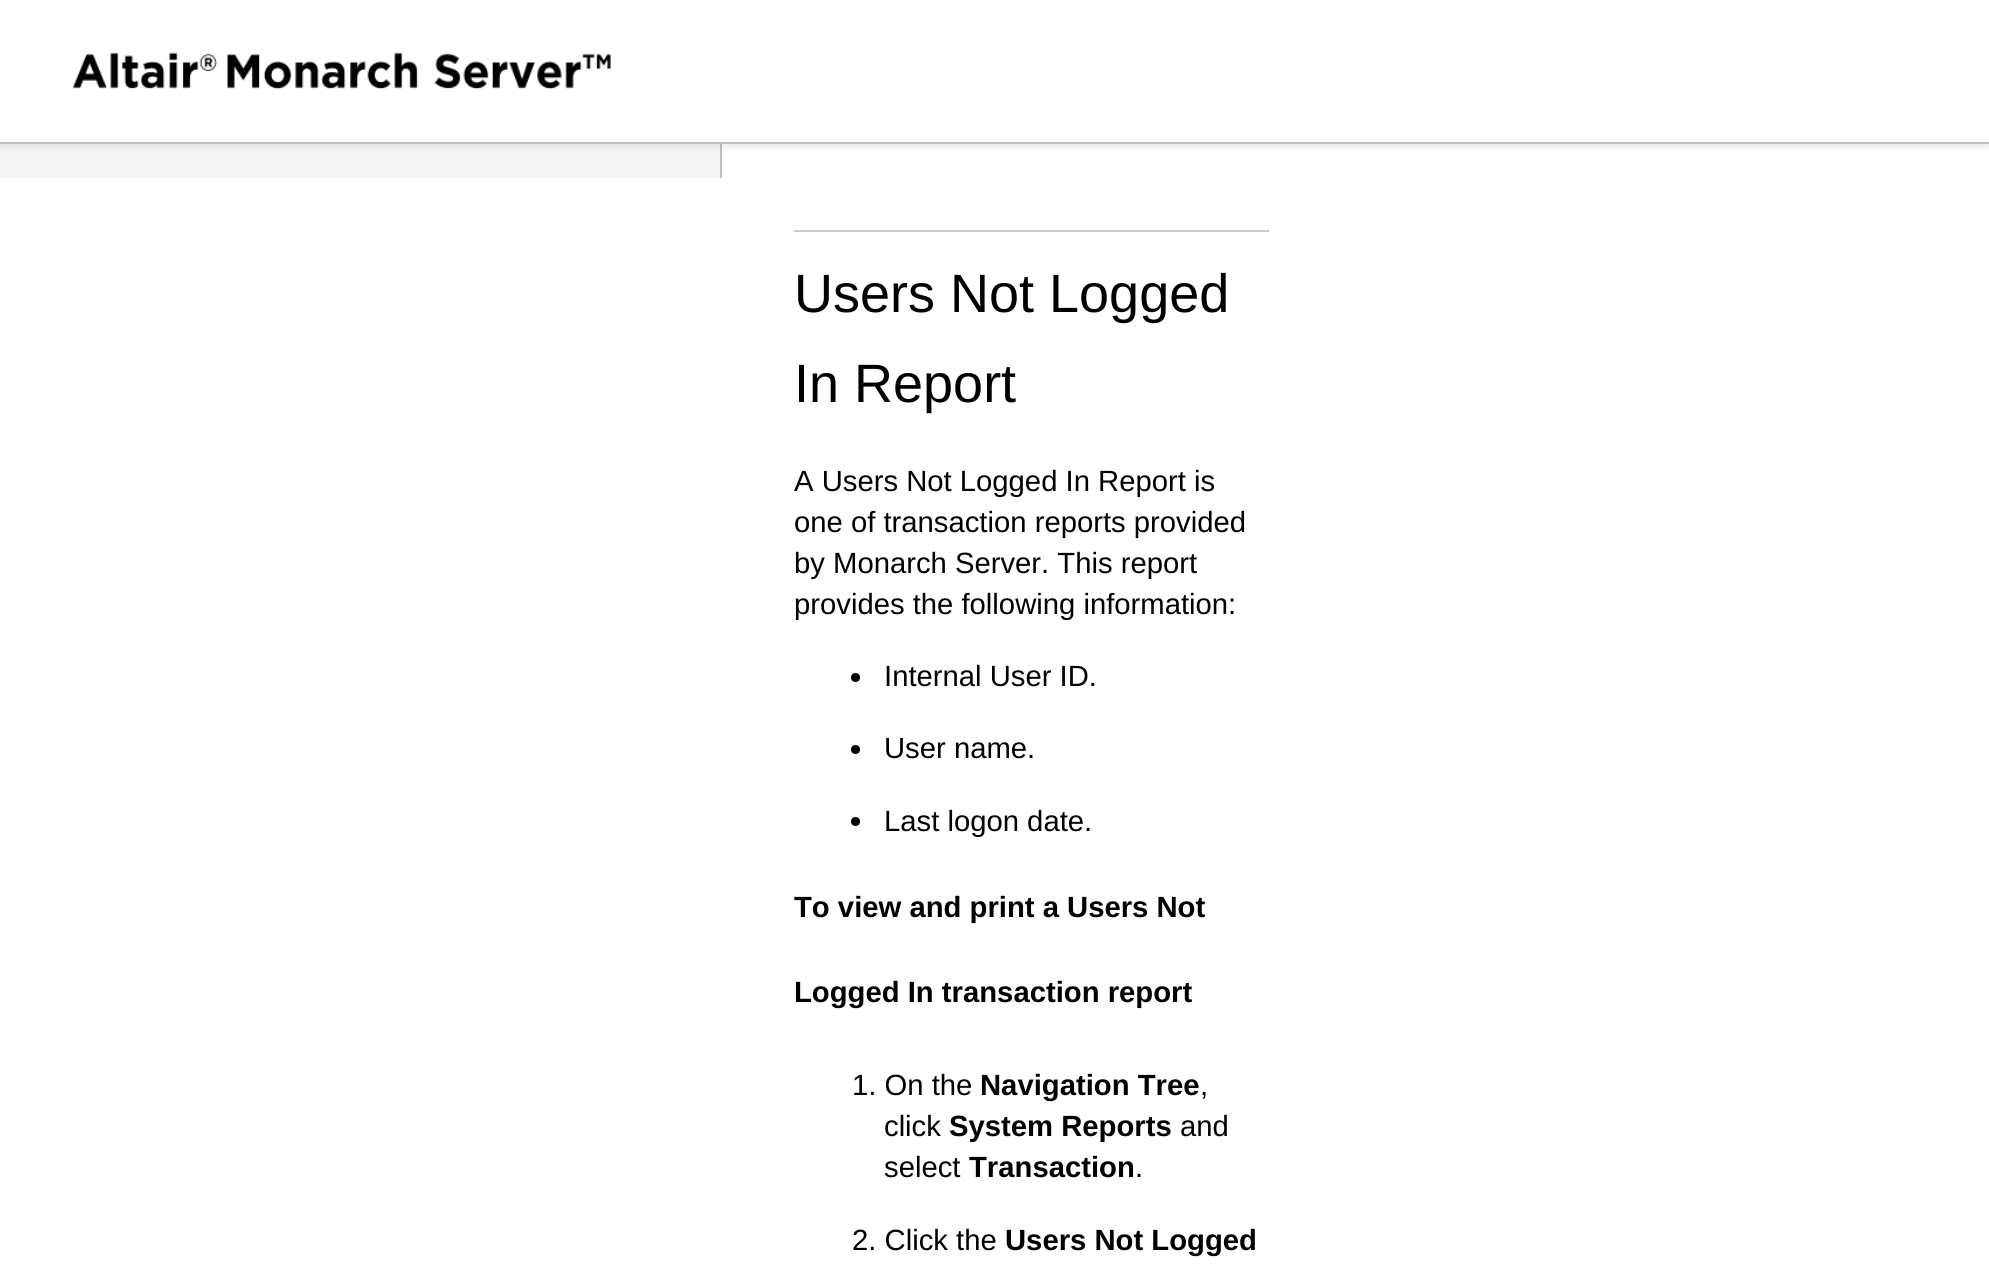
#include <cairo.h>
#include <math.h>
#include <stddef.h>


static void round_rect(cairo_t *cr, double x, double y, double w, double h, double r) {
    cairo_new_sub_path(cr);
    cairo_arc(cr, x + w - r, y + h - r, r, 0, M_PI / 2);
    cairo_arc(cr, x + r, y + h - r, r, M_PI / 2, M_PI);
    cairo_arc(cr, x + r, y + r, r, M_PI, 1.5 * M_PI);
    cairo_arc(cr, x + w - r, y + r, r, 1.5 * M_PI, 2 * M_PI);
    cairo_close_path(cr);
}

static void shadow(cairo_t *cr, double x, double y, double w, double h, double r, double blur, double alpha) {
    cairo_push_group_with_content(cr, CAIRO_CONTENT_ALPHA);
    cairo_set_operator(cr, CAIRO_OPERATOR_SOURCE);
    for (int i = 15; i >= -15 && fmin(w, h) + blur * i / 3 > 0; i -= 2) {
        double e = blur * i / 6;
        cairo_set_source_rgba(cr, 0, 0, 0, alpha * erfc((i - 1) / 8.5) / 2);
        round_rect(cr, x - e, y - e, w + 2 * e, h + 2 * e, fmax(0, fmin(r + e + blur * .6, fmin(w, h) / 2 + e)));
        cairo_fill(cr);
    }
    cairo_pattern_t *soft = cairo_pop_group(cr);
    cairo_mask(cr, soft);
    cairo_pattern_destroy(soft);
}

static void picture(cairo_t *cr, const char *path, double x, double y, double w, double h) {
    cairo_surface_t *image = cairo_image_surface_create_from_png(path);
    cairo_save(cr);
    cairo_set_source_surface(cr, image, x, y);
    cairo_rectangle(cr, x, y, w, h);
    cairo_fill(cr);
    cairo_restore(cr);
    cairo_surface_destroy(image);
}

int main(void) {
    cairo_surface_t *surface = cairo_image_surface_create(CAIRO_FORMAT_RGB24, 1989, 1266);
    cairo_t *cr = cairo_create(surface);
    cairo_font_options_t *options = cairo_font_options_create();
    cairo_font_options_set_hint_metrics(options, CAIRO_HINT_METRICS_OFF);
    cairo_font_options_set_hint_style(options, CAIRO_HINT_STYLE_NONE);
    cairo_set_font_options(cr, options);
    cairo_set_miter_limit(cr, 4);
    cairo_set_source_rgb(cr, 1, 1, 1);
    cairo_paint(cr);
    cairo_set_source_rgb(cr, 0.957, 0.957, 0.957);
    cairo_rectangle(cr, 0, 144, 720, 34);
    cairo_fill(cr);
    cairo_set_source_rgb(cr, 0.753, 0.753, 0.753);
    cairo_rectangle(cr, 720, 144, 2, 34);
    cairo_fill(cr);
    cairo_save(cr);
    cairo_rectangle(cr, 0, 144, 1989, 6);
    cairo_clip(cr);
    cairo_set_source_rgb(cr, 0, 0, 0);
    shadow(cr, 0, 2, 1989, 144, 0, 5, 0.1);
    cairo_restore(cr);
    cairo_rectangle(cr, 0, 142, 1989, 2);
    cairo_fill(cr);
    picture(cr, "img1.png", 73, 52, 538, 38);
    cairo_set_source_rgb(cr, 0.796, 0.796, 0.796);
    cairo_rectangle(cr, 794, 230, 475, 2);
    cairo_fill(cr);
    cairo_select_font_face(cr, "Liberation Sans", CAIRO_FONT_SLANT_NORMAL, CAIRO_FONT_WEIGHT_NORMAL);
    cairo_set_font_size(cr, 54);
    cairo_set_source_rgb(cr, 0, 0, 0);
    cairo_move_to(cr, 794, 312);
    cairo_show_text(cr, "Users Not Logged");
    cairo_move_to(cr, 794, 402);
    cairo_show_text(cr, "In Report");
    cairo_set_font_size(cr, 29.25);
    cairo_move_to(cr, 794, 491);
    cairo_show_text(cr, "A Users Not Logged In Report is");
    cairo_move_to(cr, 794, 532);
    cairo_show_text(cr, "one of transaction reports provided");
    cairo_move_to(cr, 794, 573);
    cairo_show_text(cr, "by Monarch Server. This report");
    cairo_move_to(cr, 794, 614);
    cairo_show_text(cr, "provides the following information:");
    cairo_new_path(cr);
    cairo_arc(cr, 855.5, 677.5, 4.5, 0, 2 * M_PI);
    cairo_fill(cr);
    cairo_move_to(cr, 884, 686);
    cairo_show_text(cr, "Internal User ID.");
    cairo_new_path(cr);
    cairo_arc(cr, 855.5, 749.5, 4.5, 0, 2 * M_PI);
    cairo_fill(cr);
    cairo_move_to(cr, 884, 758);
    cairo_show_text(cr, "User name.");
    cairo_new_path(cr);
    cairo_arc(cr, 855.5, 821.5, 4.5, 0, 2 * M_PI);
    cairo_fill(cr);
    cairo_move_to(cr, 884, 831);
    cairo_show_text(cr, "Last logon date.");
    cairo_select_font_face(cr, "Liberation Sans", CAIRO_FONT_SLANT_NORMAL, CAIRO_FONT_WEIGHT_BOLD);
    cairo_move_to(cr, 794, 917);
    cairo_show_text(cr, "To view and print a Users Not");
    cairo_move_to(cr, 794, 1002);
    cairo_show_text(cr, "Logged In transaction report");
    cairo_select_font_face(cr, "Liberation Sans", CAIRO_FONT_SLANT_NORMAL, CAIRO_FONT_WEIGHT_NORMAL);
    cairo_move_to(cr, 852, 1095);
    cairo_show_text(cr, "1. On the");
    cairo_select_font_face(cr, "Liberation Sans", CAIRO_FONT_SLANT_NORMAL, CAIRO_FONT_WEIGHT_BOLD);
    cairo_move_to(cr, 980, 1095);
    cairo_show_text(cr, "Navigation Tree");
    cairo_select_font_face(cr, "Liberation Sans", CAIRO_FONT_SLANT_NORMAL, CAIRO_FONT_WEIGHT_NORMAL);
    cairo_move_to(cr, 1200, 1095);
    cairo_show_text(cr, ",");
    cairo_move_to(cr, 884, 1136);
    cairo_show_text(cr, "click");
    cairo_select_font_face(cr, "Liberation Sans", CAIRO_FONT_SLANT_NORMAL, CAIRO_FONT_WEIGHT_BOLD);
    cairo_move_to(cr, 949, 1136);
    cairo_show_text(cr, "System Reports");
    cairo_select_font_face(cr, "Liberation Sans", CAIRO_FONT_SLANT_NORMAL, CAIRO_FONT_WEIGHT_NORMAL);
    cairo_move_to(cr, 1180, 1136);
    cairo_show_text(cr, "and");
    cairo_move_to(cr, 884, 1177);
    cairo_show_text(cr, "select");
    cairo_select_font_face(cr, "Liberation Sans", CAIRO_FONT_SLANT_NORMAL, CAIRO_FONT_WEIGHT_BOLD);
    cairo_move_to(cr, 969, 1177);
    cairo_show_text(cr, "Transaction");
    cairo_select_font_face(cr, "Liberation Sans", CAIRO_FONT_SLANT_NORMAL, CAIRO_FONT_WEIGHT_NORMAL);
    cairo_move_to(cr, 1135, 1177);
    cairo_show_text(cr, ".");
    cairo_move_to(cr, 852, 1250);
    cairo_show_text(cr, "2. Click the");
    cairo_select_font_face(cr, "Liberation Sans", CAIRO_FONT_SLANT_NORMAL, CAIRO_FONT_WEIGHT_BOLD);
    cairo_move_to(cr, 1005, 1250);
    cairo_show_text(cr, "Users Not Logged");
    cairo_surface_write_to_png(surface, "page.png");
    cairo_font_options_destroy(options);
    cairo_destroy(cr);
    cairo_surface_destroy(surface);
    return 0;
}
